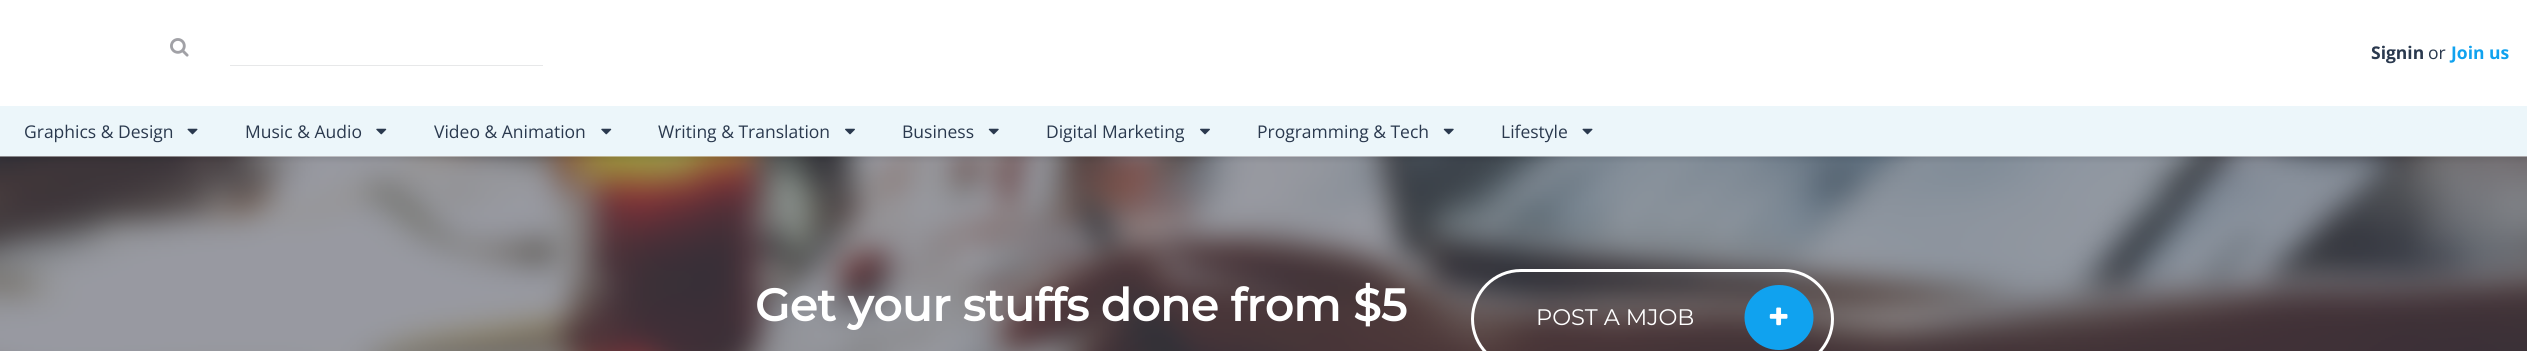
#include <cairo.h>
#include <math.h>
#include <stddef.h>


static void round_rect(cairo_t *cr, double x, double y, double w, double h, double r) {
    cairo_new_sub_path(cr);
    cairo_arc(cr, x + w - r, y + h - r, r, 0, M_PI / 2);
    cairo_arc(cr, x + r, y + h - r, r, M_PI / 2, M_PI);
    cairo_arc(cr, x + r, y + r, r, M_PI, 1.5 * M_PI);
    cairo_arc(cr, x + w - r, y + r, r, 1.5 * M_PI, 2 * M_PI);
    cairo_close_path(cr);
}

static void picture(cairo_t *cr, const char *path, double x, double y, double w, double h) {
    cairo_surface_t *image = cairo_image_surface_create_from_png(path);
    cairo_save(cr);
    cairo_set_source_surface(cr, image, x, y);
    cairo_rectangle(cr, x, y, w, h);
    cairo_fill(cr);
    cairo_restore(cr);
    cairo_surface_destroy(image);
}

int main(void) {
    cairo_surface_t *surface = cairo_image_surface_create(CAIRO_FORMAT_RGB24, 2527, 351);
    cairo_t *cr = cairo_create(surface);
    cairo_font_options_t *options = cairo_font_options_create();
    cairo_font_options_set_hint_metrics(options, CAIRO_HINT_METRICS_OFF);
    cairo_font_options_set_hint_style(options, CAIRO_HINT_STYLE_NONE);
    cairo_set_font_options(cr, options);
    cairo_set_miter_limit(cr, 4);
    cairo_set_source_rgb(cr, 1, 1, 1);
    cairo_paint(cr);
    picture(cr, "img1.png", 170, 38, 19, 19);
    cairo_set_source_rgb(cr, 0.906, 0.91, 0.914);
    cairo_rectangle(cr, 230, 65, 313, 1);
    cairo_fill(cr);
    cairo_select_font_face(cr, "Open Sans", CAIRO_FONT_SLANT_NORMAL, CAIRO_FONT_WEIGHT_BOLD);
    cairo_set_font_size(cr, 17.5);
    cairo_set_source_rgb(cr, 0.165, 0.224, 0.306);
    cairo_move_to(cr, 2371, 59);
    cairo_show_text(cr, "Signin");
    cairo_select_font_face(cr, "Open Sans", CAIRO_FONT_SLANT_NORMAL, CAIRO_FONT_WEIGHT_NORMAL);
    cairo_move_to(cr, 2428, 59);
    cairo_show_text(cr, "or");
    cairo_select_font_face(cr, "Open Sans", CAIRO_FONT_SLANT_NORMAL, CAIRO_FONT_WEIGHT_BOLD);
    cairo_set_source_rgb(cr, 0.063, 0.635, 0.937);
    cairo_move_to(cr, 2451, 59);
    cairo_show_text(cr, "Join us");
    cairo_set_source_rgb(cr, 0.925, 0.961, 0.98);
    cairo_rectangle(cr, 0, 106, 2527, 50);
    cairo_fill(cr);
    cairo_select_font_face(cr, "Open Sans", CAIRO_FONT_SLANT_NORMAL, CAIRO_FONT_WEIGHT_NORMAL);
    cairo_set_source_rgb(cr, 0.165, 0.224, 0.306);
    cairo_move_to(cr, 24, 138);
    cairo_show_text(cr, "Graphics & Design");
    picture(cr, "img2.png", 187, 128, 11, 7);
    cairo_move_to(cr, 245, 138);
    cairo_show_text(cr, "Music & Audio");
    picture(cr, "img3.png", 376, 128, 11, 7);
    cairo_move_to(cr, 434, 138);
    cairo_show_text(cr, "Video & Animation");
    picture(cr, "img3.png", 601, 128, 11, 7);
    cairo_move_to(cr, 658, 138);
    cairo_show_text(cr, "Writing & Translation");
    picture(cr, "img4.png", 845, 128, 10, 7);
    cairo_move_to(cr, 902, 138);
    cairo_show_text(cr, "Business");
    picture(cr, "img5.png", 988, 128, 11, 7);
    cairo_move_to(cr, 1046, 138);
    cairo_show_text(cr, "Digital Marketing");
    picture(cr, "img4.png", 1200, 128, 10, 7);
    cairo_move_to(cr, 1257, 138);
    cairo_show_text(cr, "Programming & Tech");
    picture(cr, "img5.png", 1443, 128, 11, 7);
    cairo_move_to(cr, 1501, 138);
    cairo_show_text(cr, "Lifestyle");
    picture(cr, "img2.png", 1582, 128, 11, 7);
    picture(cr, "img6.png", 0, 156, 2527, 195);
    cairo_select_font_face(cr, "Montserrat", CAIRO_FONT_SLANT_NORMAL, CAIRO_FONT_WEIGHT_BOLD);
    cairo_set_font_size(cr, 45);
    cairo_set_source_rgb(cr, 1, 1, 1);
    cairo_move_to(cr, 755, 321);
    cairo_show_text(cr, "Get your stuffs done from $5");
    round_rect(cr, 1472.5, 270.5, 360, 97, 48.5);
    cairo_set_line_width(cr, 3);
    cairo_stroke(cr);
    cairo_select_font_face(cr, "Montserrat", CAIRO_FONT_SLANT_NORMAL, CAIRO_FONT_WEIGHT_NORMAL);
    cairo_set_font_size(cr, 22.5);
    cairo_move_to(cr, 1536, 325);
    cairo_show_text(cr, "POST A MJOB");
    cairo_set_source_rgb(cr, 0.063, 0.635, 0.937);
    cairo_new_path(cr);
    cairo_move_to(cr, 1779, 285);
    cairo_curve_to(cr, 1798, 285, 1813.5, 299.5, 1813.5, 317.5);
    cairo_curve_to(cr, 1813.5, 335.5, 1798, 350, 1779, 350);
    cairo_curve_to(cr, 1760, 350, 1744.5, 335.5, 1744.5, 317.5);
    cairo_curve_to(cr, 1744.5, 299.5, 1760, 285, 1779, 285);
    cairo_close_path(cr);
    cairo_fill(cr);
    picture(cr, "img7.png", 1769, 307, 19, 19);
    cairo_surface_write_to_png(surface, "page.png");
    cairo_font_options_destroy(options);
    cairo_destroy(cr);
    cairo_surface_destroy(surface);
    return 0;
}
